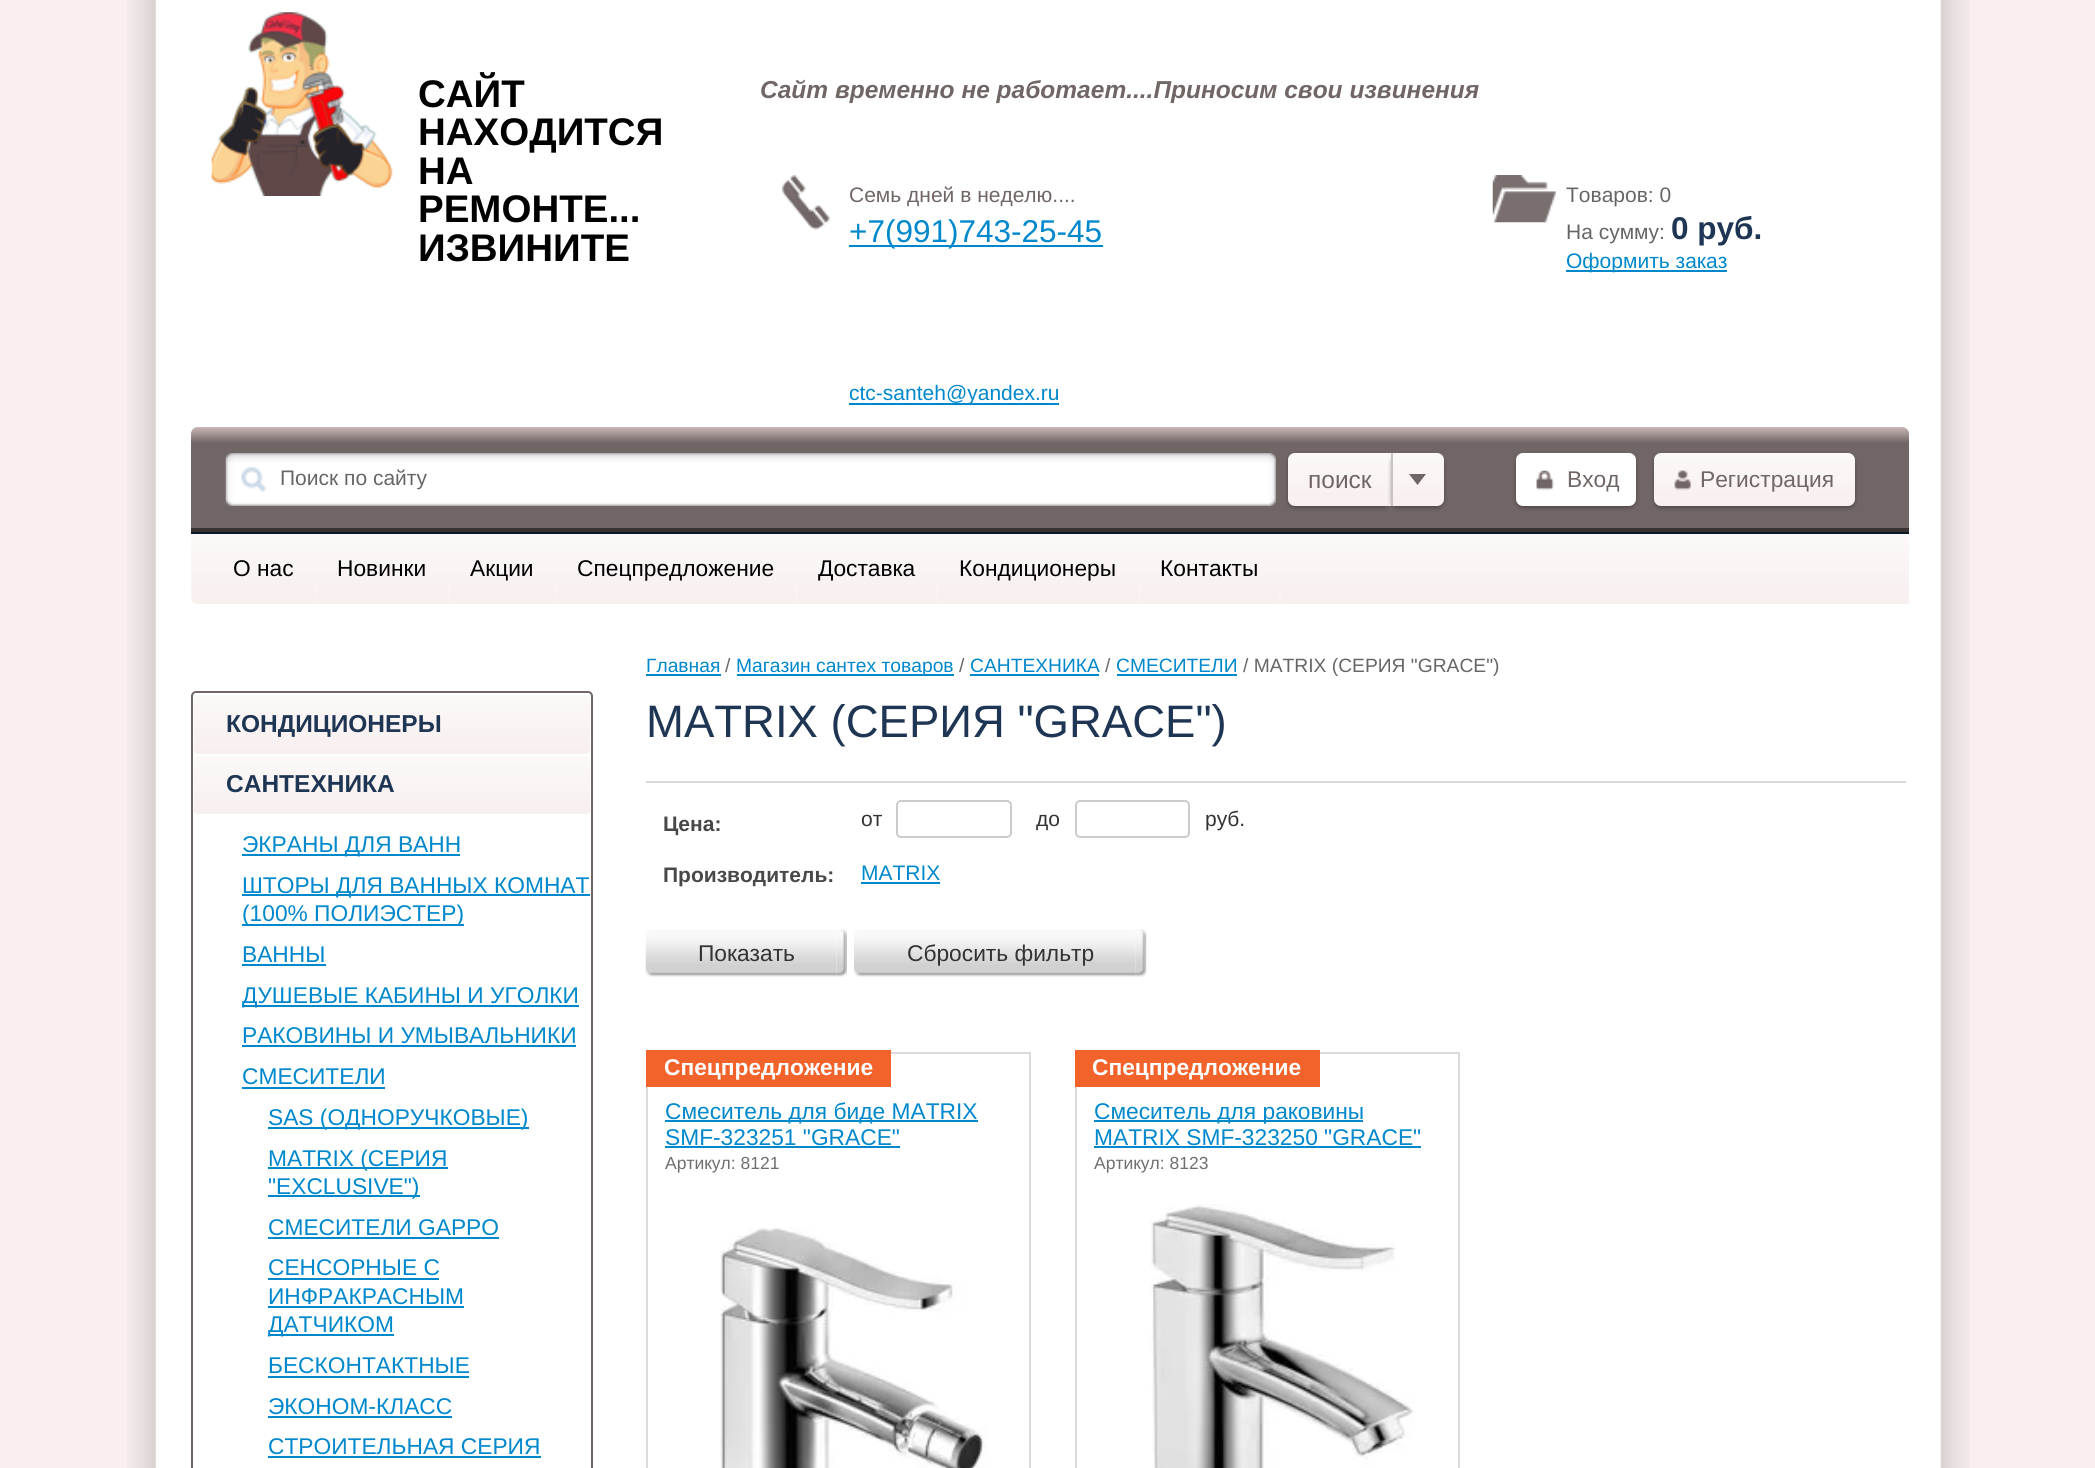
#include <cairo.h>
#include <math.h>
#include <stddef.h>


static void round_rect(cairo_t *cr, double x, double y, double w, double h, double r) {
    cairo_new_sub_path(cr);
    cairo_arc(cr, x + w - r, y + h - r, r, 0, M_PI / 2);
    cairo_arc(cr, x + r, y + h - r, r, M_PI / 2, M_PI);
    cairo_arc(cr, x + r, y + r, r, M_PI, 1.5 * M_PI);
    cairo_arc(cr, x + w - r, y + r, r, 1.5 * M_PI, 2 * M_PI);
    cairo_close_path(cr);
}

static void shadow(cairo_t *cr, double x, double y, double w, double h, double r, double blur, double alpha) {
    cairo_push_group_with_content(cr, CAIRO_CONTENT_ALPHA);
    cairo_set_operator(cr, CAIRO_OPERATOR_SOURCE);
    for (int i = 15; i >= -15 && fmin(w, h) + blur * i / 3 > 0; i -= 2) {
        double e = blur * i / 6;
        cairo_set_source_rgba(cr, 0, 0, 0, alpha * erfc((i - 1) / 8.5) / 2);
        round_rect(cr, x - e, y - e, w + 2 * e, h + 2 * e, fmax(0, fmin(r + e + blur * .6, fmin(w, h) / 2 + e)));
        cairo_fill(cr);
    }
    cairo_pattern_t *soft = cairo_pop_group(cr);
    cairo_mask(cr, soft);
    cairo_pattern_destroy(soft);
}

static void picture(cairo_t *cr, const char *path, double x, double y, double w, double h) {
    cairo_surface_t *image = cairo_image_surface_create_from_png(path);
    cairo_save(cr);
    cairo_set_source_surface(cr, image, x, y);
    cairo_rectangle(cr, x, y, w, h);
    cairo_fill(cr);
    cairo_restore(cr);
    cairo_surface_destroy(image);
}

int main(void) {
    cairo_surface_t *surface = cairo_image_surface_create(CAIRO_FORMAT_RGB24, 2095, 1468);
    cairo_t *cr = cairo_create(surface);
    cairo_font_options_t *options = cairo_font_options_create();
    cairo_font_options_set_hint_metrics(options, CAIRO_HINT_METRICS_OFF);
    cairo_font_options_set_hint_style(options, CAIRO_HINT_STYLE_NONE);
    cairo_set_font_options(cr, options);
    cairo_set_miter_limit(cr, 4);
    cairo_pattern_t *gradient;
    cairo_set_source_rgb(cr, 0.973, 0.937, 0.937);
    cairo_paint(cr);
    picture(cr, "img1.png", 127, 0, 1843, 1468);
    picture(cr, "img2.png", 211, 12, 182, 184);
    cairo_select_font_face(cr, "Liberation Sans", CAIRO_FONT_SLANT_NORMAL, CAIRO_FONT_WEIGHT_BOLD);
    cairo_set_font_size(cr, 38.5);
    cairo_set_source_rgb(cr, 0, 0, 0);
    cairo_move_to(cr, 418, 107);
    cairo_show_text(cr, "САЙТ");
    cairo_move_to(cr, 418, 145);
    cairo_show_text(cr, "НАХОДИТСЯ");
    cairo_move_to(cr, 418, 184);
    cairo_show_text(cr, "НА");
    cairo_move_to(cr, 418, 222);
    cairo_show_text(cr, "РЕМОНТЕ...");
    cairo_move_to(cr, 418, 261);
    cairo_show_text(cr, "ИЗВИНИТЕ");
    cairo_select_font_face(cr, "Liberation Sans", CAIRO_FONT_SLANT_ITALIC, CAIRO_FONT_WEIGHT_BOLD);
    cairo_set_font_size(cr, 24.5);
    cairo_set_source_rgb(cr, 0.443, 0.4, 0.4);
    cairo_move_to(cr, 760, 98);
    cairo_show_text(cr, "Сайт временно не работает....Приносим свои извинения");
    picture(cr, "img3.png", 782, 175, 48, 55);
    cairo_select_font_face(cr, "Liberation Sans", CAIRO_FONT_SLANT_NORMAL, CAIRO_FONT_WEIGHT_NORMAL);
    cairo_set_font_size(cr, 21);
    cairo_move_to(cr, 849, 202);
    cairo_show_text(cr, "Семь дней в неделю....");
    cairo_set_source_rgb(cr, 0, 0.533, 0.8);
    cairo_rectangle(cr, 849, 245, 254, 2);
    cairo_fill(cr);
    cairo_set_font_size(cr, 31.5);
    cairo_move_to(cr, 849, 242);
    cairo_show_text(cr, "+7(991)743-25-45");
    cairo_rectangle(cr, 849, 403, 210, 2);
    cairo_fill(cr);
    cairo_set_font_size(cr, 21);
    cairo_move_to(cr, 849, 400);
    cairo_show_text(cr, "ctc-santeh@yandex.ru");
    picture(cr, "img4.png", 1492, 175, 64, 48);
    cairo_set_source_rgb(cr, 0.4, 0.4, 0.4);
    cairo_move_to(cr, 1566, 202);
    cairo_show_text(cr, "Товаров: 0");
    cairo_move_to(cr, 1566, 239);
    cairo_show_text(cr, "На сумму:");
    cairo_select_font_face(cr, "Liberation Sans", CAIRO_FONT_SLANT_NORMAL, CAIRO_FONT_WEIGHT_BOLD);
    cairo_set_font_size(cr, 31.5);
    cairo_set_source_rgb(cr, 0.118, 0.212, 0.325);
    cairo_move_to(cr, 1671, 239);
    cairo_show_text(cr, "0 руб.");
    cairo_set_source_rgb(cr, 0, 0.533, 0.8);
    cairo_rectangle(cr, 1566, 270, 161, 2);
    cairo_fill(cr);
    cairo_select_font_face(cr, "Liberation Sans", CAIRO_FONT_SLANT_NORMAL, CAIRO_FONT_WEIGHT_NORMAL);
    cairo_set_font_size(cr, 21);
    cairo_move_to(cr, 1566, 268);
    cairo_show_text(cr, "Оформить заказ");
    gradient = cairo_pattern_create_linear(1050, 427, 1050, 532);
    cairo_pattern_add_color_stop_rgba(gradient, 0, 0.796, 0.722, 0.722, 1);
    cairo_pattern_add_color_stop_rgba(gradient, 0.15, 0.443, 0.4, 0.4, 1);
    cairo_set_source(cr, gradient);
    cairo_pattern_destroy(gradient);
    cairo_new_path(cr);
    cairo_move_to(cr, 198, 427);
    cairo_line_to(cr, 1902, 427);
    cairo_curve_to(cr, 1906, 427, 1909, 430, 1909, 434);
    cairo_line_to(cr, 1909, 532);
    cairo_line_to(cr, 191, 532);
    cairo_line_to(cr, 191, 434);
    cairo_curve_to(cr, 191, 430, 194, 427, 198, 427);
    cairo_close_path(cr);
    cairo_fill(cr);
    cairo_set_source_rgb(cr, 0.224, 0.2, 0.2);
    cairo_rectangle(cr, 191, 528, 1718, 4);
    cairo_fill(cr);
    cairo_set_source_rgb(cr, 0.055, 0.098, 0.149);
    cairo_rectangle(cr, 191, 532, 1718, 2);
    cairo_fill(cr);
    picture(cr, "img5.png", 225, 453, 1051, 53);
    cairo_set_source_rgb(cr, 0.4, 0.4, 0.4);
    cairo_move_to(cr, 280, 485);
    cairo_show_text(cr, "Поиск по сайту");
    cairo_set_source_rgb(cr, 0, 0, 0);
    shadow(cr, 1288, 455, 103, 53, 7, 2, 0.3);
    gradient = cairo_pattern_create_linear(1340, 453, 1340, 506);
    cairo_pattern_add_color_stop_rgba(gradient, 0, 0.988, 0.976, 0.976, 1);
    cairo_pattern_add_color_stop_rgba(gradient, 1, 0.973, 0.937, 0.937, 1);
    cairo_set_source(cr, gradient);
    cairo_pattern_destroy(gradient);
    cairo_new_path(cr);
    cairo_move_to(cr, 1295, 453);
    cairo_line_to(cr, 1391, 453);
    cairo_line_to(cr, 1391, 506);
    cairo_line_to(cr, 1295, 506);
    cairo_curve_to(cr, 1291, 506, 1288, 503, 1288, 499);
    cairo_line_to(cr, 1288, 460);
    cairo_curve_to(cr, 1288, 456, 1291, 453, 1295, 453);
    cairo_close_path(cr);
    cairo_fill(cr);
    cairo_set_font_size(cr, 24.5);
    cairo_set_source_rgb(cr, 0.443, 0.4, 0.4);
    cairo_move_to(cr, 1308, 488);
    cairo_show_text(cr, "поиск");
    cairo_set_source_rgb(cr, 0, 0, 0);
    shadow(cr, 1391, 455, 53, 53, 7, 2, 0.3);
    gradient = cairo_pattern_create_linear(1418, 453, 1418, 506);
    cairo_pattern_add_color_stop_rgba(gradient, 0, 0.988, 0.976, 0.976, 1);
    cairo_pattern_add_color_stop_rgba(gradient, 1, 0.973, 0.937, 0.937, 1);
    cairo_set_source(cr, gradient);
    cairo_pattern_destroy(gradient);
    cairo_new_path(cr);
    cairo_move_to(cr, 1391, 453);
    cairo_line_to(cr, 1437, 453);
    cairo_curve_to(cr, 1441, 453, 1444, 456, 1444, 460);
    cairo_line_to(cr, 1444, 499);
    cairo_curve_to(cr, 1444, 503, 1441, 506, 1437, 506);
    cairo_line_to(cr, 1391, 506);
    cairo_close_path(cr);
    cairo_fill(cr);
    cairo_set_source_rgb(cr, 0.784, 0.761, 0.761);
    cairo_rectangle(cr, 1391, 453, 2, 53);
    cairo_fill(cr);
    cairo_set_source_rgb(cr, 0.443, 0.4, 0.4);
    cairo_new_path(cr);
    cairo_move_to(cr, 1409, 474);
    cairo_line_to(cr, 1426, 474);
    cairo_line_to(cr, 1417.5, 485);
    cairo_close_path(cr);
    cairo_fill(cr);
    cairo_set_source_rgb(cr, 0, 0, 0);
    shadow(cr, 1516, 455, 120, 53, 7, 2, 0.3);
    cairo_set_source_rgb(cr, 1, 1, 1);
    round_rect(cr, 1516, 453, 120, 53, 7);
    cairo_fill(cr);
    picture(cr, "img6.png", 1536, 470, 19, 21);
    cairo_set_font_size(cr, 22.75);
    cairo_set_source_rgb(cr, 0.443, 0.4, 0.4);
    cairo_move_to(cr, 1567, 487);
    cairo_show_text(cr, "Вход");
    cairo_set_source_rgb(cr, 0, 0, 0);
    shadow(cr, 1654, 455, 201, 53, 7, 2, 0.3);
    gradient = cairo_pattern_create_linear(1754, 453, 1754, 506);
    cairo_pattern_add_color_stop_rgba(gradient, 0, 0.988, 0.976, 0.976, 1);
    cairo_pattern_add_color_stop_rgba(gradient, 1, 0.973, 0.937, 0.937, 1);
    cairo_set_source(cr, gradient);
    cairo_pattern_destroy(gradient);
    round_rect(cr, 1654, 453, 201, 53, 7);
    cairo_fill(cr);
    picture(cr, "img7.png", 1674, 470, 17, 21);
    cairo_set_source_rgb(cr, 0.443, 0.4, 0.4);
    cairo_move_to(cr, 1700, 487);
    cairo_show_text(cr, "Регистрация");
    gradient = cairo_pattern_create_linear(1050, 534, 1050, 604);
    cairo_pattern_add_color_stop_rgba(gradient, 0, 0.988, 0.976, 0.976, 1);
    cairo_pattern_add_color_stop_rgba(gradient, 1, 0.973, 0.937, 0.937, 1);
    cairo_set_source(cr, gradient);
    cairo_pattern_destroy(gradient);
    cairo_new_path(cr);
    cairo_move_to(cr, 191, 534);
    cairo_line_to(cr, 1909, 534);
    cairo_line_to(cr, 1909, 597);
    cairo_curve_to(cr, 1909, 601, 1906, 604, 1902, 604);
    cairo_line_to(cr, 198, 604);
    cairo_curve_to(cr, 194, 604, 191, 601, 191, 597);
    cairo_close_path(cr);
    cairo_fill(cr);
    gradient = cairo_pattern_create_linear(1061, 534, 1061, 604);
    cairo_pattern_add_color_stop_rgba(gradient, 0, 0.988, 0.976, 0.976, 1);
    cairo_pattern_add_color_stop_rgba(gradient, 1, 0.973, 0.937, 0.937, 1);
    cairo_set_source(cr, gradient);
    cairo_pattern_destroy(gradient);
    cairo_rectangle(cr, 1903, 598, 6, 6);
    cairo_fill(cr);
    cairo_set_source_rgba(cr, 1, 1, 1, 0.2);
    cairo_rectangle(cr, 315, 587, 2, 17);
    cairo_fill(cr);
    cairo_set_source_rgb(cr, 0, 0, 0);
    cairo_move_to(cr, 233, 576);
    cairo_show_text(cr, "О нас");
    cairo_set_source_rgba(cr, 1, 1, 1, 0.2);
    cairo_rectangle(cr, 448, 587, 2, 17);
    cairo_fill(cr);
    cairo_set_source_rgb(cr, 0, 0, 0);
    cairo_move_to(cr, 337, 576);
    cairo_show_text(cr, "Новинки");
    cairo_set_source_rgba(cr, 1, 1, 1, 0.2);
    cairo_rectangle(cr, 555, 587, 2, 17);
    cairo_fill(cr);
    cairo_set_source_rgb(cr, 0, 0, 0);
    cairo_move_to(cr, 470, 576);
    cairo_show_text(cr, "Акции");
    cairo_set_source_rgba(cr, 1, 1, 1, 0.2);
    cairo_rectangle(cr, 796, 587, 2, 17);
    cairo_fill(cr);
    cairo_set_source_rgb(cr, 0, 0, 0);
    cairo_move_to(cr, 577, 576);
    cairo_show_text(cr, "Спецпредложение");
    cairo_set_source_rgba(cr, 1, 1, 1, 0.2);
    cairo_rectangle(cr, 936, 587, 2, 17);
    cairo_fill(cr);
    cairo_set_source_rgb(cr, 0, 0, 0);
    cairo_move_to(cr, 818, 576);
    cairo_show_text(cr, "Доставка");
    cairo_set_source_rgba(cr, 1, 1, 1, 0.2);
    cairo_rectangle(cr, 1138, 587, 2, 17);
    cairo_fill(cr);
    cairo_set_source_rgb(cr, 0, 0, 0);
    cairo_move_to(cr, 959, 576);
    cairo_show_text(cr, "Кондиционеры");
    cairo_set_source_rgba(cr, 1, 1, 1, 0.2);
    cairo_rectangle(cr, 1279, 587, 2, 17);
    cairo_fill(cr);
    cairo_set_source_rgb(cr, 0, 0, 0);
    cairo_move_to(cr, 1160, 576);
    cairo_show_text(cr, "Контакты");
    round_rect(cr, 192, 692, 400, 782, 4);
    cairo_set_source_rgb(cr, 0.443, 0.4, 0.4);
    cairo_stroke(cr);
    gradient = cairo_pattern_create_linear(392, 695, 392, 754);
    cairo_pattern_add_color_stop_rgba(gradient, 0, 0.988, 0.976, 0.976, 1);
    cairo_pattern_add_color_stop_rgba(gradient, 1, 0.973, 0.937, 0.937, 1);
    cairo_set_source(cr, gradient);
    cairo_pattern_destroy(gradient);
    round_rect(cr, 194, 695, 396, 59, 4);
    cairo_fill(cr);
    cairo_select_font_face(cr, "Liberation Sans", CAIRO_FONT_SLANT_NORMAL, CAIRO_FONT_WEIGHT_BOLD);
    cairo_set_font_size(cr, 24.5);
    cairo_set_source_rgb(cr, 0.118, 0.212, 0.325);
    cairo_move_to(cr, 226, 732);
    cairo_show_text(cr, "КОНДИЦИОНЕРЫ");
    gradient = cairo_pattern_create_linear(392, 756, 392, 814);
    cairo_pattern_add_color_stop_rgba(gradient, 0, 0.988, 0.976, 0.976, 1);
    cairo_pattern_add_color_stop_rgba(gradient, 1, 0.973, 0.937, 0.937, 1);
    cairo_set_source(cr, gradient);
    cairo_pattern_destroy(gradient);
    round_rect(cr, 194, 756, 396, 58, 4);
    cairo_fill(cr);
    cairo_set_source_rgb(cr, 0.118, 0.212, 0.325);
    cairo_move_to(cr, 226, 792);
    cairo_show_text(cr, "САНТЕХНИКА");
    cairo_set_source_rgb(cr, 0, 0.533, 0.8);
    cairo_rectangle(cr, 242, 854, 218, 2);
    cairo_fill(cr);
    cairo_select_font_face(cr, "Liberation Sans", CAIRO_FONT_SLANT_NORMAL, CAIRO_FONT_WEIGHT_NORMAL);
    cairo_set_font_size(cr, 22.75);
    cairo_move_to(cr, 242, 852);
    cairo_show_text(cr, "ЭКРАНЫ ДЛЯ ВАНН");
    cairo_rectangle(cr, 242, 894, 348, 2);
    cairo_fill(cr);
    cairo_move_to(cr, 242, 893);
    cairo_show_text(cr, "ШТОРЫ ДЛЯ ВАННЫХ КОМНАТ");
    cairo_rectangle(cr, 242, 924, 222, 2);
    cairo_fill(cr);
    cairo_move_to(cr, 242, 921);
    cairo_show_text(cr, "(100% ПОЛИЭСТЕР)");
    cairo_move_to(cr, 242, 962);
    cairo_show_text(cr, "ВАННЫ");
    cairo_rectangle(cr, 242, 964, 84, 2);
    cairo_fill(cr);
    cairo_rectangle(cr, 242, 1005, 337, 2);
    cairo_fill(cr);
    cairo_move_to(cr, 242, 1003);
    cairo_show_text(cr, "ДУШЕВЫЕ КАБИНЫ И УГОЛКИ");
    cairo_move_to(cr, 242, 1043);
    cairo_show_text(cr, "РАКОВИНЫ И УМЫВАЛЬНИКИ");
    cairo_rectangle(cr, 242, 1045, 334, 2);
    cairo_fill(cr);
    cairo_move_to(cr, 242, 1084);
    cairo_show_text(cr, "СМЕСИТЕЛИ");
    cairo_rectangle(cr, 242, 1087, 143, 2);
    cairo_fill(cr);
    cairo_rectangle(cr, 268, 1127, 261, 2);
    cairo_fill(cr);
    cairo_move_to(cr, 268, 1125);
    cairo_show_text(cr, "SAS (ОДНОРУЧКОВЫЕ)");
    cairo_rectangle(cr, 268, 1167, 180, 2);
    cairo_fill(cr);
    cairo_move_to(cr, 268, 1166);
    cairo_show_text(cr, "MATRIX (СЕРИЯ");
    cairo_rectangle(cr, 268, 1195, 152, 2);
    cairo_fill(cr);
    cairo_move_to(cr, 268, 1194);
    cairo_show_text(cr, "\"EXCLUSIVE\")");
    cairo_move_to(cr, 268, 1235);
    cairo_show_text(cr, "СМЕСИТЕЛИ GAPPO");
    cairo_rectangle(cr, 268, 1237, 231, 2);
    cairo_fill(cr);
    cairo_move_to(cr, 268, 1275);
    cairo_show_text(cr, "СЕНСОРНЫЕ С");
    cairo_rectangle(cr, 268, 1278, 171, 2);
    cairo_fill(cr);
    cairo_move_to(cr, 268, 1304);
    cairo_show_text(cr, "ИНФРАКРАСНЫМ");
    cairo_rectangle(cr, 268, 1306, 196, 2);
    cairo_fill(cr);
    cairo_rectangle(cr, 268, 1334, 126, 2);
    cairo_fill(cr);
    cairo_move_to(cr, 268, 1332);
    cairo_show_text(cr, "ДАТЧИКОМ");
    cairo_move_to(cr, 268, 1373);
    cairo_show_text(cr, "БЕСКОНТАКТНЫЕ");
    cairo_rectangle(cr, 268, 1376, 201, 2);
    cairo_fill(cr);
    cairo_move_to(cr, 268, 1414);
    cairo_show_text(cr, "ЭКОНОМ-КЛАСС");
    cairo_rectangle(cr, 268, 1416, 184, 2);
    cairo_fill(cr);
    cairo_move_to(cr, 268, 1454);
    cairo_show_text(cr, "СТРОИТЕЛЬНАЯ СЕРИЯ");
    cairo_rectangle(cr, 268, 1456, 273, 2);
    cairo_fill(cr);
    cairo_set_font_size(cr, 19.25);
    cairo_move_to(cr, 646, 672);
    cairo_show_text(cr, "Главная");
    cairo_rectangle(cr, 646, 674, 75, 2);
    cairo_fill(cr);
    cairo_set_source_rgb(cr, 0.4, 0.4, 0.4);
    cairo_move_to(cr, 725, 672);
    cairo_show_text(cr, "/");
    cairo_set_source_rgb(cr, 0, 0.533, 0.8);
    cairo_rectangle(cr, 737, 674, 217, 2);
    cairo_fill(cr);
    cairo_move_to(cr, 736, 672);
    cairo_show_text(cr, "Магазин сантех товаров");
    cairo_set_source_rgb(cr, 0.4, 0.4, 0.4);
    cairo_move_to(cr, 959, 672);
    cairo_show_text(cr, "/");
    cairo_set_source_rgb(cr, 0, 0.533, 0.8);
    cairo_move_to(cr, 970, 672);
    cairo_show_text(cr, "САНТЕХНИКА");
    cairo_rectangle(cr, 970, 674, 129, 2);
    cairo_fill(cr);
    cairo_set_source_rgb(cr, 0.4, 0.4, 0.4);
    cairo_move_to(cr, 1105, 672);
    cairo_show_text(cr, "/");
    cairo_set_source_rgb(cr, 0, 0.533, 0.8);
    cairo_move_to(cr, 1116, 672);
    cairo_show_text(cr, "СМЕСИТЕЛИ");
    cairo_rectangle(cr, 1117, 674, 120, 2);
    cairo_fill(cr);
    cairo_set_source_rgb(cr, 0.4, 0.4, 0.4);
    cairo_move_to(cr, 1243, 672);
    cairo_show_text(cr, "/ MATRIX (СЕРИЯ \"GRACE\")");
    cairo_set_font_size(cr, 45.5);
    cairo_set_source_rgb(cr, 0.118, 0.212, 0.325);
    cairo_move_to(cr, 646, 737);
    cairo_show_text(cr, "MATRIX (СЕРИЯ \"GRACE\")");
    cairo_set_source_rgb(cr, 0.859, 0.859, 0.859);
    cairo_rectangle(cr, 646, 781, 1260, 2);
    cairo_fill(cr);
    cairo_select_font_face(cr, "Liberation Sans", CAIRO_FONT_SLANT_NORMAL, CAIRO_FONT_WEIGHT_BOLD);
    cairo_set_font_size(cr, 21);
    cairo_set_source_rgb(cr, 0.282, 0.282, 0.282);
    cairo_move_to(cr, 663, 831);
    cairo_show_text(cr, "Цена:");
    cairo_select_font_face(cr, "Liberation Sans", CAIRO_FONT_SLANT_NORMAL, CAIRO_FONT_WEIGHT_NORMAL);
    cairo_set_source_rgb(cr, 0.2, 0.2, 0.2);
    cairo_move_to(cr, 861, 826);
    cairo_show_text(cr, "от");
    round_rect(cr, 897, 801, 114, 36, 4);
    cairo_set_source_rgb(cr, 0.8, 0.8, 0.8);
    cairo_stroke(cr);
    cairo_set_source_rgb(cr, 0.2, 0.2, 0.2);
    cairo_move_to(cr, 1036, 826);
    cairo_show_text(cr, "до");
    round_rect(cr, 1076, 801, 113, 36, 4);
    cairo_set_source_rgb(cr, 0.8, 0.8, 0.8);
    cairo_stroke(cr);
    cairo_set_source_rgb(cr, 0.2, 0.2, 0.2);
    cairo_move_to(cr, 1205, 826);
    cairo_show_text(cr, "руб.");
    cairo_select_font_face(cr, "Liberation Sans", CAIRO_FONT_SLANT_NORMAL, CAIRO_FONT_WEIGHT_BOLD);
    cairo_set_source_rgb(cr, 0.282, 0.282, 0.282);
    cairo_move_to(cr, 663, 882);
    cairo_show_text(cr, "Производитель:");
    cairo_select_font_face(cr, "Liberation Sans", CAIRO_FONT_SLANT_NORMAL, CAIRO_FONT_WEIGHT_NORMAL);
    cairo_set_source_rgb(cr, 0, 0.533, 0.8);
    cairo_move_to(cr, 861, 880);
    cairo_show_text(cr, "MATRIX");
    cairo_rectangle(cr, 861, 882, 79, 2);
    cairo_fill(cr);
    picture(cr, "img8.png", 645, 929, 192, 48);
    cairo_set_font_size(cr, 22.75);
    cairo_set_source_rgb(cr, 0.2, 0.2, 0.2);
    cairo_move_to(cr, 698, 961);
    cairo_show_text(cr, "Показать");
    picture(cr, "img9.png", 836, 929, 11, 48);
    picture(cr, "img10.png", 854, 929, 282, 48);
    cairo_move_to(cr, 907, 961);
    cairo_show_text(cr, "Сбросить фильтр");
    picture(cr, "img11.png", 1135, 929, 12, 48);
    cairo_set_source_rgb(cr, 0.859, 0.859, 0.859);
    cairo_rectangle(cr, 891, 1052, 140, 2);
    cairo_fill(cr);
    cairo_rectangle(cr, 1029, 1052, 2, 416);
    cairo_fill(cr);
    cairo_rectangle(cr, 646, 1087, 2, 381);
    cairo_fill(cr);
    cairo_set_source_rgb(cr, 0.945, 0.388, 0.169);
    cairo_rectangle(cr, 646, 1050, 245, 37);
    cairo_fill(cr);
    cairo_select_font_face(cr, "Liberation Sans", CAIRO_FONT_SLANT_NORMAL, CAIRO_FONT_WEIGHT_BOLD);
    cairo_set_source_rgb(cr, 0.996, 0.996, 0.996);
    cairo_move_to(cr, 664, 1075);
    cairo_show_text(cr, "Спецпредложение");
    cairo_set_source_rgb(cr, 0, 0.533, 0.8);
    cairo_rectangle(cr, 665, 1120, 313, 2);
    cairo_fill(cr);
    cairo_select_font_face(cr, "Liberation Sans", CAIRO_FONT_SLANT_NORMAL, CAIRO_FONT_WEIGHT_NORMAL);
    cairo_move_to(cr, 665, 1119);
    cairo_show_text(cr, "Смеситель для биде MATRIX");
    cairo_move_to(cr, 665, 1145);
    cairo_show_text(cr, "SMF-323251 \"GRACE\"");
    cairo_rectangle(cr, 665, 1146, 235, 2);
    cairo_fill(cr);
    cairo_set_font_size(cr, 17.5);
    cairo_set_source_rgb(cr, 0.435, 0.435, 0.435);
    cairo_move_to(cr, 665, 1169);
    cairo_show_text(cr, "Артикул: 8121");
    picture(cr, "img12.png", 720, 1228, 267, 240);
    cairo_set_source_rgb(cr, 0.859, 0.859, 0.859);
    cairo_rectangle(cr, 1320, 1052, 140, 2);
    cairo_fill(cr);
    cairo_rectangle(cr, 1458, 1052, 2, 416);
    cairo_fill(cr);
    cairo_rectangle(cr, 1075, 1087, 2, 381);
    cairo_fill(cr);
    cairo_set_source_rgb(cr, 0.945, 0.388, 0.169);
    cairo_rectangle(cr, 1075, 1050, 245, 37);
    cairo_fill(cr);
    cairo_select_font_face(cr, "Liberation Sans", CAIRO_FONT_SLANT_NORMAL, CAIRO_FONT_WEIGHT_BOLD);
    cairo_set_font_size(cr, 22.75);
    cairo_set_source_rgb(cr, 0.996, 0.996, 0.996);
    cairo_move_to(cr, 1092, 1075);
    cairo_show_text(cr, "Спецпредложение");
    cairo_set_source_rgb(cr, 0, 0.533, 0.8);
    cairo_rectangle(cr, 1094, 1120, 269, 2);
    cairo_fill(cr);
    cairo_select_font_face(cr, "Liberation Sans", CAIRO_FONT_SLANT_NORMAL, CAIRO_FONT_WEIGHT_NORMAL);
    cairo_move_to(cr, 1094, 1119);
    cairo_show_text(cr, "Смеситель для раковины");
    cairo_move_to(cr, 1094, 1145);
    cairo_show_text(cr, "MATRIX SMF-323250 \"GRACE\"");
    cairo_rectangle(cr, 1094, 1146, 327, 2);
    cairo_fill(cr);
    cairo_set_font_size(cr, 17.5);
    cairo_set_source_rgb(cr, 0.435, 0.435, 0.435);
    cairo_move_to(cr, 1094, 1169);
    cairo_show_text(cr, "Артикул: 8123");
    picture(cr, "img13.png", 1150, 1204, 264, 264);
    cairo_surface_write_to_png(surface, "page.png");
    cairo_font_options_destroy(options);
    cairo_destroy(cr);
    cairo_surface_destroy(surface);
    return 0;
}
